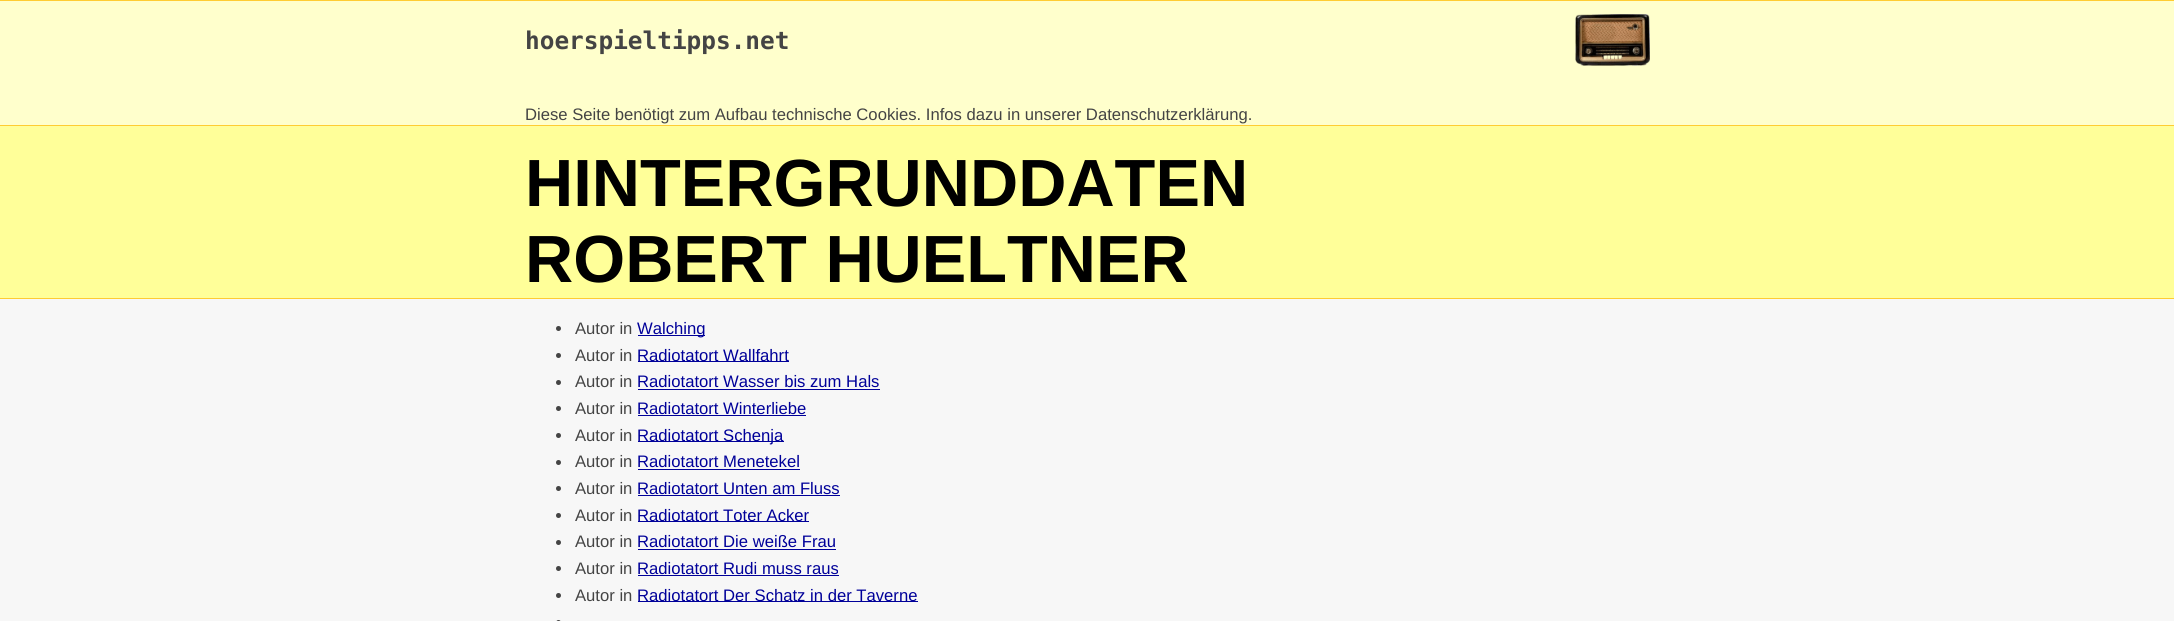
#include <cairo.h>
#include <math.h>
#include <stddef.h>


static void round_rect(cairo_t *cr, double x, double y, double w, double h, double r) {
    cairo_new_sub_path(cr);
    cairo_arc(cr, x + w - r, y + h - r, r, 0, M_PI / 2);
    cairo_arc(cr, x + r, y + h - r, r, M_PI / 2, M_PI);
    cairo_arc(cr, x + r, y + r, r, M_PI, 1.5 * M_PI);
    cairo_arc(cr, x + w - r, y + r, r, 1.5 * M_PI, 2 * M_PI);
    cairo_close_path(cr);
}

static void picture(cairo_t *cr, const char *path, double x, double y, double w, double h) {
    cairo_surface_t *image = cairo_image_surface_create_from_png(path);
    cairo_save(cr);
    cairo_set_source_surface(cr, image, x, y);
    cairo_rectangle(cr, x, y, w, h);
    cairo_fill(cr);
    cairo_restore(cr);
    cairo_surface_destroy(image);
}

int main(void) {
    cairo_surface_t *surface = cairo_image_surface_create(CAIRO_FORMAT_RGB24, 2174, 621);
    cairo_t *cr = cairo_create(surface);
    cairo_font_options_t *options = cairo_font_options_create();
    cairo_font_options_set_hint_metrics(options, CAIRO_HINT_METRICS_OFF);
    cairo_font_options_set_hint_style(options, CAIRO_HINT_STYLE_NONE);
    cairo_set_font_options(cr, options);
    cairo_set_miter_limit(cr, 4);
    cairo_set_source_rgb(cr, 0.965, 0.965, 0.965);
    cairo_paint(cr);
    cairo_set_source_rgb(cr, 1, 1, 0.8);
    cairo_rectangle(cr, 0, 1, 2174, 124);
    cairo_fill(cr);
    cairo_set_source_rgb(cr, 1, 0.8, 0.2);
    cairo_rectangle(cr, 0, 0, 2174, 1);
    cairo_fill(cr);
    cairo_rectangle(cr, 0, 125, 2174, 1);
    cairo_fill(cr);
    cairo_select_font_face(cr, "DejaVu Sans Mono", CAIRO_FONT_SLANT_NORMAL, CAIRO_FONT_WEIGHT_BOLD);
    cairo_set_font_size(cr, 24.4);
    cairo_set_source_rgb(cr, 0.267, 0.267, 0.267);
    cairo_move_to(cr, 525, 49);
    cairo_show_text(cr, "hoerspieltipps.net");
    picture(cr, "img1.png", 1575, 14, 75, 52);
    cairo_select_font_face(cr, "Liberation Sans", CAIRO_FONT_SLANT_NORMAL, CAIRO_FONT_WEIGHT_NORMAL);
    cairo_set_font_size(cr, 16.65);
    cairo_move_to(cr, 525, 120);
    cairo_show_text(cr, "Diese Seite benötigt zum Aufbau technische Cookies. Infos dazu in unserer Datenschutzerklärung.");
    cairo_set_source_rgb(cr, 1, 1, 0.6);
    cairo_rectangle(cr, 0, 126, 2174, 172);
    cairo_fill(cr);
    cairo_set_source_rgb(cr, 1, 0.8, 0.2);
    cairo_rectangle(cr, 0, 298, 2174, 1);
    cairo_fill(cr);
    cairo_select_font_face(cr, "Liberation Sans", CAIRO_FONT_SLANT_NORMAL, CAIRO_FONT_WEIGHT_BOLD);
    cairo_set_font_size(cr, 66.75);
    cairo_set_source_rgb(cr, 0, 0, 0);
    cairo_move_to(cr, 525, 206);
    cairo_show_text(cr, "HINTERGRUNDDATEN");
    cairo_move_to(cr, 525, 282);
    cairo_show_text(cr, "ROBERT HUELTNER");
    cairo_set_source_rgb(cr, 0.267, 0.267, 0.267);
    cairo_new_path(cr);
    cairo_arc(cr, 558.5, 328.5, 2.5, 0, 2 * M_PI);
    cairo_fill(cr);
    cairo_select_font_face(cr, "Liberation Sans", CAIRO_FONT_SLANT_NORMAL, CAIRO_FONT_WEIGHT_NORMAL);
    cairo_set_font_size(cr, 16.65);
    cairo_move_to(cr, 575, 334);
    cairo_show_text(cr, "Autor in");
    cairo_set_source_rgb(cr, 0, 0, 0.6);
    cairo_rectangle(cr, 638, 335, 67, 1);
    cairo_fill(cr);
    cairo_move_to(cr, 637, 334);
    cairo_show_text(cr, "Walching");
    cairo_set_source_rgb(cr, 0.267, 0.267, 0.267);
    cairo_new_path(cr);
    cairo_arc(cr, 558.5, 355.5, 2.5, 0, 2 * M_PI);
    cairo_fill(cr);
    cairo_move_to(cr, 575, 361);
    cairo_show_text(cr, "Autor in");
    cairo_set_source_rgb(cr, 0, 0, 0.6);
    cairo_rectangle(cr, 638, 361, 151, 1);
    cairo_fill(cr);
    cairo_move_to(cr, 637, 361);
    cairo_show_text(cr, "Radiotatort Wallfahrt");
    cairo_set_source_rgb(cr, 0.267, 0.267, 0.267);
    cairo_new_path(cr);
    cairo_arc(cr, 558.5, 382.5, 2.5, 0, 2 * M_PI);
    cairo_fill(cr);
    cairo_move_to(cr, 575, 387);
    cairo_show_text(cr, "Autor in");
    cairo_set_source_rgb(cr, 0, 0, 0.6);
    cairo_move_to(cr, 637, 387);
    cairo_show_text(cr, "Radiotatort Wasser bis zum Hals");
    cairo_rectangle(cr, 638, 389, 242, 1);
    cairo_fill(cr);
    cairo_set_source_rgb(cr, 0.267, 0.267, 0.267);
    cairo_arc(cr, 558.5, 408.5, 2.5, 0, 2 * M_PI);
    cairo_fill(cr);
    cairo_move_to(cr, 575, 414);
    cairo_show_text(cr, "Autor in");
    cairo_set_source_rgb(cr, 0, 0, 0.6);
    cairo_move_to(cr, 637, 414);
    cairo_show_text(cr, "Radiotatort Winterliebe");
    cairo_rectangle(cr, 638, 415, 168, 1);
    cairo_fill(cr);
    cairo_set_source_rgb(cr, 0.267, 0.267, 0.267);
    cairo_arc(cr, 558.5, 435.5, 2.5, 0, 2 * M_PI);
    cairo_fill(cr);
    cairo_move_to(cr, 575, 441);
    cairo_show_text(cr, "Autor in");
    cairo_set_source_rgb(cr, 0, 0, 0.6);
    cairo_rectangle(cr, 638, 441, 146, 1);
    cairo_fill(cr);
    cairo_move_to(cr, 637, 441);
    cairo_show_text(cr, "Radiotatort Schenja");
    cairo_set_source_rgb(cr, 0.267, 0.267, 0.267);
    cairo_new_path(cr);
    cairo_arc(cr, 558.5, 462.5, 2.5, 0, 2 * M_PI);
    cairo_fill(cr);
    cairo_move_to(cr, 575, 467);
    cairo_show_text(cr, "Autor in");
    cairo_set_source_rgb(cr, 0, 0, 0.6);
    cairo_move_to(cr, 637, 467);
    cairo_show_text(cr, "Radiotatort Menetekel");
    cairo_rectangle(cr, 638, 469, 162, 1);
    cairo_fill(cr);
    cairo_set_source_rgb(cr, 0.267, 0.267, 0.267);
    cairo_arc(cr, 558.5, 488.5, 2.5, 0, 2 * M_PI);
    cairo_fill(cr);
    cairo_move_to(cr, 575, 494);
    cairo_show_text(cr, "Autor in");
    cairo_set_source_rgb(cr, 0, 0, 0.6);
    cairo_move_to(cr, 637, 494);
    cairo_show_text(cr, "Radiotatort Unten am Fluss");
    cairo_rectangle(cr, 638, 495, 202, 1);
    cairo_fill(cr);
    cairo_set_source_rgb(cr, 0.267, 0.267, 0.267);
    cairo_arc(cr, 558.5, 515.5, 2.5, 0, 2 * M_PI);
    cairo_fill(cr);
    cairo_move_to(cr, 575, 521);
    cairo_show_text(cr, "Autor in");
    cairo_set_source_rgb(cr, 0, 0, 0.6);
    cairo_rectangle(cr, 638, 521, 171, 1);
    cairo_fill(cr);
    cairo_move_to(cr, 637, 521);
    cairo_show_text(cr, "Radiotatort Toter Acker");
    cairo_set_source_rgb(cr, 0.267, 0.267, 0.267);
    cairo_new_path(cr);
    cairo_arc(cr, 558.5, 542.5, 2.5, 0, 2 * M_PI);
    cairo_fill(cr);
    cairo_move_to(cr, 575, 547);
    cairo_show_text(cr, "Autor in");
    cairo_set_source_rgb(cr, 0, 0, 0.6);
    cairo_move_to(cr, 637, 547);
    cairo_show_text(cr, "Radiotatort Die weiße Frau");
    cairo_rectangle(cr, 638, 549, 198, 1);
    cairo_fill(cr);
    cairo_set_source_rgb(cr, 0.267, 0.267, 0.267);
    cairo_arc(cr, 558.5, 568.5, 2.5, 0, 2 * M_PI);
    cairo_fill(cr);
    cairo_move_to(cr, 575, 574);
    cairo_show_text(cr, "Autor in");
    cairo_set_source_rgb(cr, 0, 0, 0.6);
    cairo_move_to(cr, 637, 574);
    cairo_show_text(cr, "Radiotatort Rudi muss raus");
    cairo_rectangle(cr, 638, 575, 201, 1);
    cairo_fill(cr);
    cairo_set_source_rgb(cr, 0.267, 0.267, 0.267);
    cairo_arc(cr, 558.5, 595.5, 2.5, 0, 2 * M_PI);
    cairo_fill(cr);
    cairo_move_to(cr, 575, 601);
    cairo_show_text(cr, "Autor in");
    cairo_set_source_rgb(cr, 0, 0, 0.6);
    cairo_rectangle(cr, 638, 601, 280, 1);
    cairo_fill(cr);
    cairo_move_to(cr, 637, 601);
    cairo_show_text(cr, "Radiotatort Der Schatz in der Taverne");
    cairo_set_source_rgb(cr, 0.267, 0.267, 0.267);
    round_rect(cr, 556, 620, 5, 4, 2.5);
    cairo_fill(cr);
    cairo_surface_write_to_png(surface, "page.png");
    cairo_font_options_destroy(options);
    cairo_destroy(cr);
    cairo_surface_destroy(surface);
    return 0;
}
